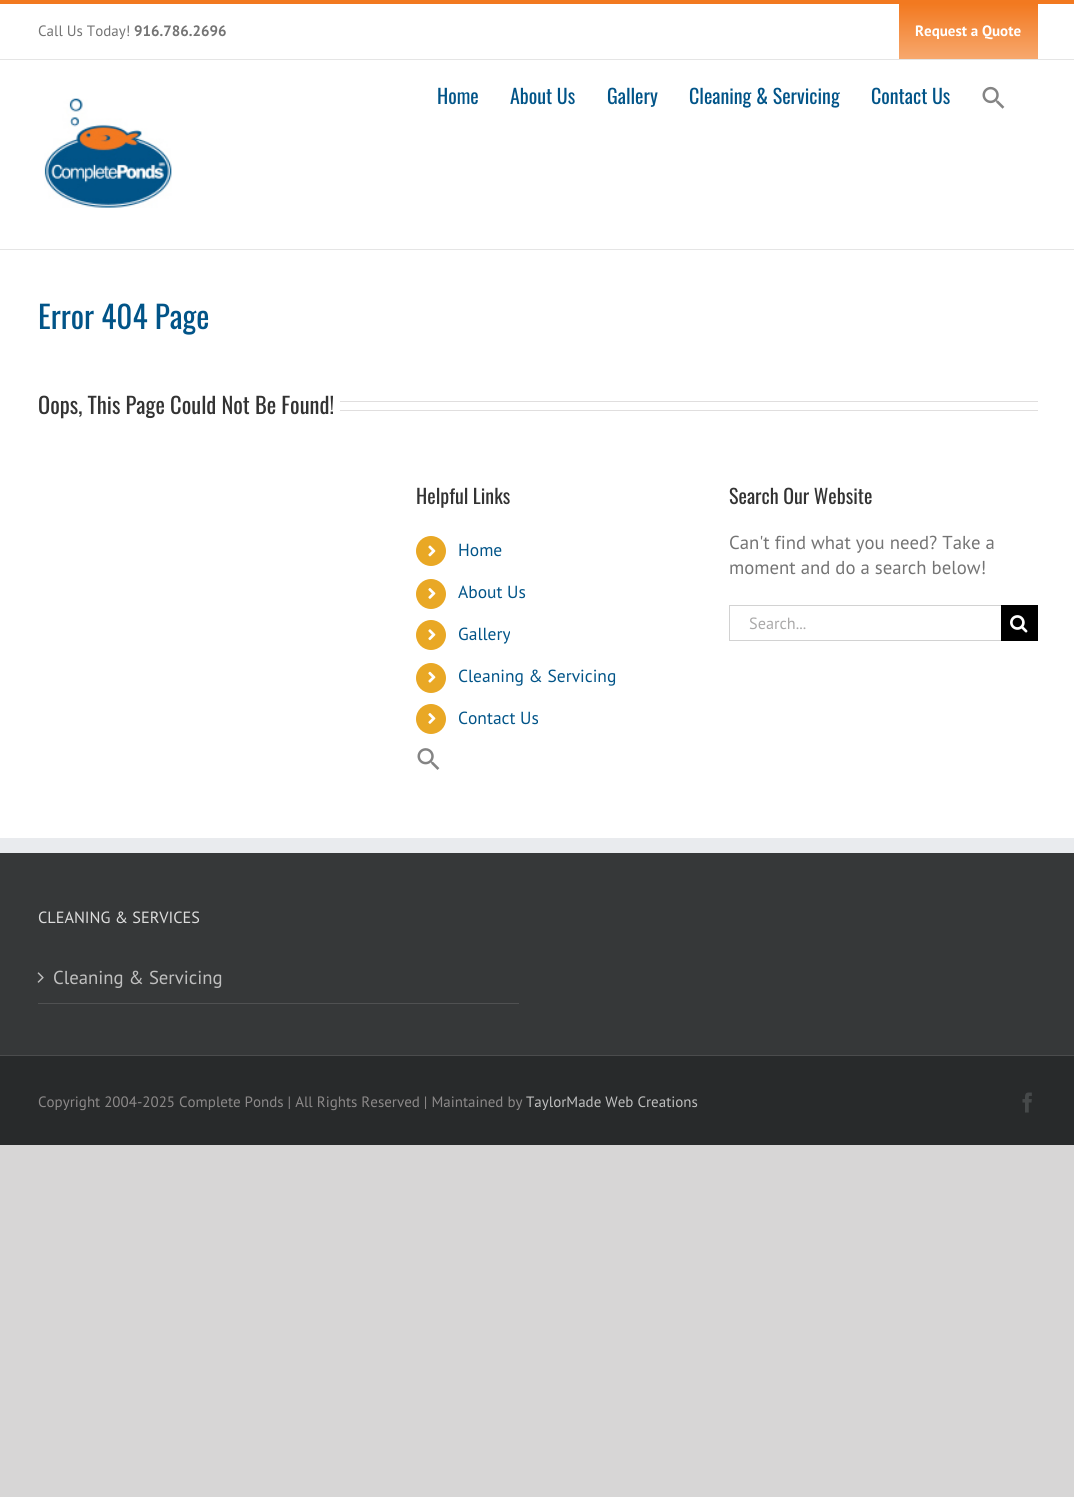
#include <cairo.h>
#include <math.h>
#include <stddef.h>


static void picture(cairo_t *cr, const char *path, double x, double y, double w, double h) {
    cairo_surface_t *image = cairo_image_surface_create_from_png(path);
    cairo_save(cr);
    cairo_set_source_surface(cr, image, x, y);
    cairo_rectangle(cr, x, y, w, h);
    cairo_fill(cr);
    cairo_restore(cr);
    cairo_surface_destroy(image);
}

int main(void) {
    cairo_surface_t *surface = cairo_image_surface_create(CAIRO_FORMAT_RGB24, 1074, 1497);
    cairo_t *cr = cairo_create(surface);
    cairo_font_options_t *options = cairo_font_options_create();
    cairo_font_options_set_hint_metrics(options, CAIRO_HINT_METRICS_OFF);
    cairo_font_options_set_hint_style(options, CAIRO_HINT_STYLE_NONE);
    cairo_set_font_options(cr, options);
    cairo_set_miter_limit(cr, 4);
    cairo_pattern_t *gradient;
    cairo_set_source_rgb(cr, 0.843, 0.839, 0.839);
    cairo_paint(cr);
    cairo_set_source_rgb(cr, 1, 1, 1);
    cairo_rectangle(cr, 0, 4, 1074, 55);
    cairo_fill(cr);
    cairo_set_source_rgb(cr, 0.949, 0.475, 0.125);
    cairo_rectangle(cr, 0, 0, 1074, 4);
    cairo_fill(cr);
    cairo_set_source_rgb(cr, 0.898, 0.898, 0.898);
    cairo_rectangle(cr, 0, 59, 1074, 1);
    cairo_fill(cr);
    cairo_select_font_face(cr, "PT Sans", CAIRO_FONT_SLANT_NORMAL, CAIRO_FONT_WEIGHT_NORMAL);
    cairo_set_font_size(cr, 15);
    cairo_set_source_rgb(cr, 0.455, 0.455, 0.455);
    cairo_move_to(cr, 38, 36);
    cairo_show_text(cr, "Call Us Today!");
    cairo_select_font_face(cr, "PT Sans", CAIRO_FONT_SLANT_NORMAL, CAIRO_FONT_WEIGHT_BOLD);
    cairo_move_to(cr, 134, 36);
    cairo_show_text(cr, "916.786.2696");
    gradient = cairo_pattern_create_linear(968, 3.7, 968, 59);
    cairo_pattern_add_color_stop_rgba(gradient, 0, 0.949, 0.475, 0.125, 1);
    cairo_pattern_add_color_stop_rgba(gradient, 1, 0.969, 0.659, 0.431, 1);
    cairo_set_source(cr, gradient);
    cairo_pattern_destroy(gradient);
    cairo_rectangle(cr, 899, 4, 139, 55);
    cairo_fill(cr);
    cairo_set_source_rgb(cr, 1, 1, 1);
    cairo_move_to(cr, 915, 36);
    cairo_show_text(cr, "Request a Quote");
    cairo_rectangle(cr, 0, 60, 1074, 189);
    cairo_fill(cr);
    cairo_set_source_rgb(cr, 0.898, 0.898, 0.898);
    cairo_rectangle(cr, 0, 249, 1074, 1);
    cairo_fill(cr);
    picture(cr, "img1.png", 44, 98, 128, 110);
    cairo_select_font_face(cr, "Oswald", CAIRO_FONT_SLANT_NORMAL, CAIRO_FONT_WEIGHT_NORMAL);
    cairo_set_font_size(cr, 20);
    cairo_set_source_rgb(cr, 0.004, 0.329, 0.533);
    cairo_move_to(cr, 437, 104);
    cairo_show_text(cr, "Home");
    cairo_move_to(cr, 510, 104);
    cairo_show_text(cr, "About Us");
    cairo_move_to(cr, 607, 104);
    cairo_show_text(cr, "Gallery");
    cairo_move_to(cr, 689, 104);
    cairo_show_text(cr, "Cleaning & Servicing");
    cairo_move_to(cr, 871, 104);
    cairo_show_text(cr, "Contact Us");
    picture(cr, "img2.png", 982, 86, 23, 23);
    cairo_set_source_rgb(cr, 1, 1, 1);
    cairo_rectangle(cr, 0, 250, 1074, 588);
    cairo_fill(cr);
    cairo_set_font_size(cr, 31.25);
    cairo_set_source_rgb(cr, 0.004, 0.329, 0.533);
    cairo_move_to(cr, 38, 329);
    cairo_show_text(cr, "Error 404 Page");
    cairo_set_font_size(cr, 22.5);
    cairo_set_source_rgb(cr, 0.2, 0.2, 0.2);
    cairo_move_to(cr, 38, 414);
    cairo_show_text(cr, "Oops, This Page Could Not Be Found!");
    cairo_set_source_rgb(cr, 0.878, 0.871, 0.871);
    cairo_rectangle(cr, 340, 401, 698, 1);
    cairo_fill(cr);
    cairo_rectangle(cr, 340, 410, 698, 1);
    cairo_fill(cr);
    cairo_set_font_size(cr, 20);
    cairo_set_source_rgb(cr, 0.2, 0.2, 0.2);
    cairo_move_to(cr, 416, 504);
    cairo_show_text(cr, "Helpful Links");
    cairo_set_source_rgb(cr, 0.914, 0.659, 0.145);
    cairo_new_path(cr);
    cairo_arc(cr, 431, 551, 15, 0, 2 * M_PI);
    cairo_fill(cr);
    picture(cr, "img3.png", 428, 545, 8, 12);
    cairo_select_font_face(cr, "PT Sans", CAIRO_FONT_SLANT_NORMAL, CAIRO_FONT_WEIGHT_NORMAL);
    cairo_set_font_size(cr, 17.5);
    cairo_set_source_rgb(cr, 0.004, 0.329, 0.533);
    cairo_move_to(cr, 458, 556);
    cairo_show_text(cr, "Home");
    cairo_set_source_rgb(cr, 0.914, 0.659, 0.145);
    cairo_new_path(cr);
    cairo_arc(cr, 431, 594, 15, 0, 2 * M_PI);
    cairo_fill(cr);
    picture(cr, "img4.png", 428, 588, 8, 11);
    cairo_set_source_rgb(cr, 0.004, 0.329, 0.533);
    cairo_move_to(cr, 458, 598);
    cairo_show_text(cr, "About Us");
    cairo_set_source_rgb(cr, 0.914, 0.659, 0.145);
    cairo_new_path(cr);
    cairo_arc(cr, 431, 635, 15, 0, 2 * M_PI);
    cairo_fill(cr);
    picture(cr, "img5.png", 428, 629, 8, 12);
    cairo_set_source_rgb(cr, 0.004, 0.329, 0.533);
    cairo_move_to(cr, 458, 640);
    cairo_show_text(cr, "Gallery");
    cairo_set_source_rgb(cr, 0.914, 0.659, 0.145);
    cairo_new_path(cr);
    cairo_arc(cr, 431, 678, 15, 0, 2 * M_PI);
    cairo_fill(cr);
    picture(cr, "img6.png", 428, 671, 8, 12);
    cairo_set_source_rgb(cr, 0.004, 0.329, 0.533);
    cairo_move_to(cr, 458, 682);
    cairo_show_text(cr, "Cleaning & Servicing");
    cairo_set_source_rgb(cr, 0.914, 0.659, 0.145);
    cairo_new_path(cr);
    cairo_arc(cr, 431, 719, 15, 0, 2 * M_PI);
    cairo_fill(cr);
    picture(cr, "img4.png", 428, 713, 8, 11);
    cairo_set_source_rgb(cr, 0.004, 0.329, 0.533);
    cairo_move_to(cr, 458, 724);
    cairo_show_text(cr, "Contact Us");
    picture(cr, "img7.png", 417, 748, 23, 22);
    cairo_select_font_face(cr, "Oswald", CAIRO_FONT_SLANT_NORMAL, CAIRO_FONT_WEIGHT_NORMAL);
    cairo_set_font_size(cr, 20);
    cairo_set_source_rgb(cr, 0.2, 0.2, 0.2);
    cairo_move_to(cr, 729, 504);
    cairo_show_text(cr, "Search Our Website");
    cairo_select_font_face(cr, "PT Sans", CAIRO_FONT_SLANT_NORMAL, CAIRO_FONT_WEIGHT_NORMAL);
    cairo_set_font_size(cr, 18.75);
    cairo_set_source_rgb(cr, 0.455, 0.455, 0.455);
    cairo_move_to(cr, 729, 549);
    cairo_show_text(cr, "Can't find what you need? Take a");
    cairo_move_to(cr, 729, 574);
    cairo_show_text(cr, "moment and do a search below!");
    cairo_set_source_rgb(cr, 0.824, 0.824, 0.824);
    cairo_rectangle(cr, 729, 605, 272, 1);
    cairo_fill(cr);
    cairo_rectangle(cr, 729, 640, 272, 1);
    cairo_fill(cr);
    cairo_rectangle(cr, 729, 605, 1, 36);
    cairo_fill(cr);
    cairo_set_font_size(cr, 16.25);
    cairo_set_source_rgb(cr, 0.667, 0.663, 0.663);
    cairo_move_to(cr, 749, 629);
    cairo_show_text(cr, "Search...");
    cairo_set_source_rgb(cr, 0, 0, 0);
    cairo_rectangle(cr, 1001, 605, 37, 36);
    cairo_fill(cr);
    picture(cr, "img8.png", 1010, 615, 18, 18);
    cairo_set_source_rgb(cr, 0.212, 0.22, 0.224);
    cairo_rectangle(cr, 0, 853, 1074, 202);
    cairo_fill(cr);
    cairo_set_source_rgb(cr, 0.914, 0.918, 0.933);
    cairo_rectangle(cr, 0, 838, 1074, 15);
    cairo_fill(cr);
    cairo_set_source_rgb(cr, 0.867, 0.867, 0.867);
    cairo_move_to(cr, 38, 923);
    cairo_show_text(cr, "CLEANING & SERVICES");
    cairo_set_source_rgb(cr, 0.314, 0.318, 0.322);
    cairo_rectangle(cr, 38, 1003, 481, 1);
    cairo_fill(cr);
    picture(cr, "img9.png", 37, 972, 7, 11);
    cairo_set_font_size(cr, 18.75);
    cairo_set_source_rgb(cr, 0.749, 0.749, 0.749);
    cairo_move_to(cr, 53, 984);
    cairo_show_text(cr, "Cleaning & Servicing");
    cairo_set_source_rgb(cr, 0.157, 0.165, 0.169);
    cairo_rectangle(cr, 0, 1056, 1074, 89);
    cairo_fill(cr);
    cairo_set_source_rgb(cr, 0.294, 0.298, 0.302);
    cairo_rectangle(cr, 0, 1055, 1074, 1);
    cairo_fill(cr);
    cairo_set_font_size(cr, 15);
    cairo_set_source_rgb(cr, 0.549, 0.537, 0.537);
    cairo_move_to(cr, 38, 1107);
    cairo_show_text(cr, "Copyright 2004-2025 Complete Ponds | All Rights Reserved | Maintained by");
    cairo_set_source_rgb(cr, 0.749, 0.749, 0.749);
    cairo_move_to(cr, 526, 1107);
    cairo_show_text(cr, "TaylorMade Web Creations");
    picture(cr, "img10.png", 1022, 1092, 10, 21);
    cairo_surface_write_to_png(surface, "page.png");
    cairo_font_options_destroy(options);
    cairo_destroy(cr);
    cairo_surface_destroy(surface);
    return 0;
}
